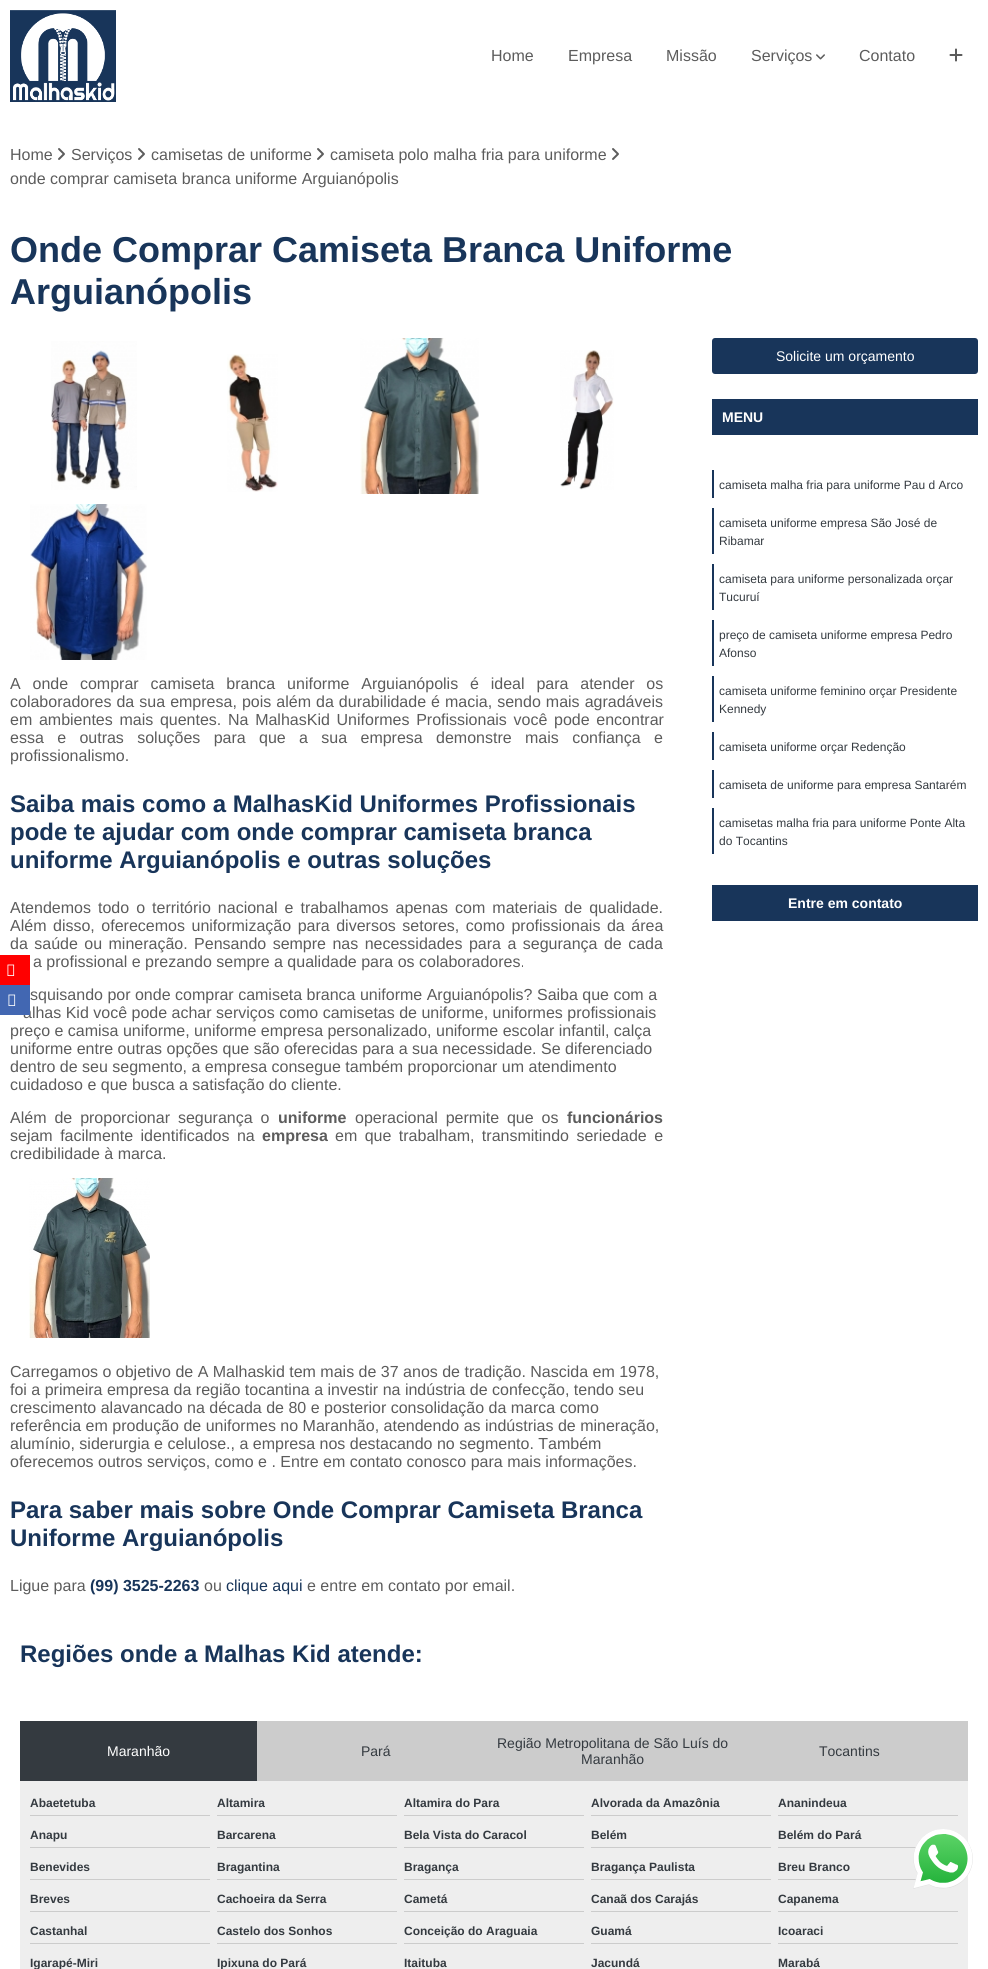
#include <cairo.h>
#include <math.h>
#include <stddef.h>


static void spaced_text(cairo_t *cr, double x, double y, const char *s, double letter, double word) {
    cairo_move_to(cr, x, y);
    while (*s) {
        char ch[5] = {0};
        int n = 0;
        do ch[n++] = *s++; while ((*s & 0xC0) == 0x80);
        cairo_show_text(cr, ch);
        cairo_rel_move_to(cr, letter + word * (*ch == ' '), 0);
    }
}

static void round_rect(cairo_t *cr, double x, double y, double w, double h, double r) {
    cairo_new_sub_path(cr);
    cairo_arc(cr, x + w - r, y + h - r, r, 0, M_PI / 2);
    cairo_arc(cr, x + r, y + h - r, r, M_PI / 2, M_PI);
    cairo_arc(cr, x + r, y + r, r, M_PI, 1.5 * M_PI);
    cairo_arc(cr, x + w - r, y + r, r, 1.5 * M_PI, 2 * M_PI);
    cairo_close_path(cr);
}

static void picture(cairo_t *cr, const char *path, double x, double y, double w, double h) {
    cairo_surface_t *image = cairo_image_surface_create_from_png(path);
    cairo_save(cr);
    cairo_set_source_surface(cr, image, x, y);
    cairo_rectangle(cr, x, y, w, h);
    cairo_fill(cr);
    cairo_restore(cr);
    cairo_surface_destroy(image);
}

int main(void) {
    cairo_surface_t *surface = cairo_image_surface_create(CAIRO_FORMAT_RGB24, 988, 1969);
    cairo_t *cr = cairo_create(surface);
    cairo_font_options_t *options = cairo_font_options_create();
    cairo_font_options_set_hint_metrics(options, CAIRO_HINT_METRICS_OFF);
    cairo_font_options_set_hint_style(options, CAIRO_HINT_STYLE_NONE);
    cairo_set_font_options(cr, options);
    cairo_set_miter_limit(cr, 4);
    cairo_set_source_rgb(cr, 1, 1, 1);
    cairo_paint(cr);
    picture(cr, "img1.png", 10, 10, 106, 92);
    cairo_select_font_face(cr, "Liberation Sans", CAIRO_FONT_SLANT_NORMAL, CAIRO_FONT_WEIGHT_NORMAL);
    cairo_set_font_size(cr, 16);
    cairo_set_source_rgb(cr, 0.361, 0.361, 0.361);
    cairo_move_to(cr, 491, 61);
    cairo_show_text(cr, "Home");
    cairo_move_to(cr, 568, 61);
    cairo_show_text(cr, "Empresa");
    cairo_move_to(cr, 666, 61);
    cairo_show_text(cr, "Missão");
    cairo_move_to(cr, 751, 61);
    cairo_show_text(cr, "Serviços");
    picture(cr, "img2.png", 816, 54, 9, 6);
    cairo_move_to(cr, 859, 61);
    cairo_show_text(cr, "Contato");
    picture(cr, "img3.png", 949, 48, 14, 14);
    cairo_move_to(cr, 10, 160);
    cairo_show_text(cr, "Home");
    picture(cr, "img4.png", 58, 148, 7, 12);
    cairo_move_to(cr, 71, 160);
    cairo_show_text(cr, "Serviços");
    picture(cr, "img4.png", 138, 148, 7, 12);
    cairo_move_to(cr, 151, 160);
    cairo_show_text(cr, "camisetas de uniforme");
    picture(cr, "img4.png", 317, 148, 7, 12);
    cairo_move_to(cr, 330, 160);
    cairo_show_text(cr, "camiseta polo malha fria para uniforme");
    picture(cr, "img4.png", 612, 148, 7, 12);
    cairo_move_to(cr, 10, 184);
    cairo_show_text(cr, "onde comprar camiseta branca uniforme Arguianópolis");
    cairo_select_font_face(cr, "Liberation Sans", CAIRO_FONT_SLANT_NORMAL, CAIRO_FONT_WEIGHT_BOLD);
    cairo_set_font_size(cr, 36);
    cairo_set_source_rgb(cr, 0.094, 0.208, 0.353);
    cairo_move_to(cr, 10, 262);
    cairo_show_text(cr, "Onde Comprar Camiseta Branca Uniforme");
    cairo_move_to(cr, 10, 304);
    cairo_show_text(cr, "Arguianópolis");
    picture(cr, "img5.png", 51, 341, 86, 149);
    picture(cr, "img6.png", 227, 354, 51, 138);
    picture(cr, "img7.png", 360, 338, 119, 156);
    picture(cr, "img8.png", 560, 350, 54, 140);
    picture(cr, "img9.png", 30, 504, 117, 156);
    cairo_select_font_face(cr, "Liberation Sans", CAIRO_FONT_SLANT_NORMAL, CAIRO_FONT_WEIGHT_NORMAL);
    cairo_set_font_size(cr, 16);
    cairo_set_source_rgb(cr, 0.361, 0.361, 0.361);
    spaced_text(cr, 10, 689, "A onde comprar camiseta branca uniforme Arguianópolis é ideal para atender os", 0, 7.4);
    spaced_text(cr, 10, 707, "colaboradores da sua empresa, pois além da durabilidade é macia, sendo mais agradáveis", 0, 0.6);
    spaced_text(cr, 10, 725, "em ambientes mais quentes. Na MalhasKid Uniformes Profissionais você pode encontrar", 0, 2.25);
    spaced_text(cr, 10, 743, "essa e outras soluções para que a sua empresa demonstre mais confiança e", 0, 8.9);
    cairo_move_to(cr, 10, 761);
    cairo_show_text(cr, "profissionalismo.");
    cairo_select_font_face(cr, "Liberation Sans", CAIRO_FONT_SLANT_NORMAL, CAIRO_FONT_WEIGHT_BOLD);
    cairo_set_font_size(cr, 24);
    cairo_set_source_rgb(cr, 0.094, 0.208, 0.353);
    cairo_move_to(cr, 10, 812);
    cairo_show_text(cr, "Saiba mais como a MalhasKid Uniformes Profissionais");
    cairo_move_to(cr, 10, 840);
    cairo_show_text(cr, "pode te ajudar com onde comprar camiseta branca");
    cairo_move_to(cr, 10, 868);
    cairo_show_text(cr, "uniforme Arguianópolis e outras soluções");
    cairo_select_font_face(cr, "Liberation Sans", CAIRO_FONT_SLANT_NORMAL, CAIRO_FONT_WEIGHT_NORMAL);
    cairo_set_font_size(cr, 16);
    cairo_set_source_rgb(cr, 0.361, 0.361, 0.361);
    spaced_text(cr, 10, 913, "Atendemos todo o território nacional e trabalhamos apenas com materiais de qualidade.", 0, 2.6);
    spaced_text(cr, 10, 931, "Além disso, oferecemos uniformização para diversos setores, como profissionais da área", 0, 2.1);
    spaced_text(cr, 10, 949, "da saúde ou mineração. Pensando sempre nas necessidades para a segurança de cada", 0, 2);
    cairo_move_to(cr, 33, 967);
    cairo_show_text(cr, "a profissional e prezando sempre a qualidade para os colaboradores.");
    cairo_move_to(cr, 30, 1000);
    cairo_show_text(cr, "squisando por onde comprar camiseta branca uniforme Arguianópolis? Saiba que com a");
    cairo_move_to(cr, 23, 1018);
    cairo_show_text(cr, "alhas Kid você pode achar serviços como camisetas de uniforme, uniformes profissionais");
    cairo_move_to(cr, 10, 1036);
    cairo_show_text(cr, "preço e camisa uniforme, uniforme empresa personalizado, uniforme escolar infantil, calça");
    cairo_move_to(cr, 10, 1054);
    cairo_show_text(cr, "uniforme entre outras opções que são oferecidas para a sua necessidade. Se diferenciado");
    cairo_move_to(cr, 10, 1072);
    cairo_show_text(cr, "dentro de seu segmento, a empresa consegue também proporcionar um atendimento");
    cairo_move_to(cr, 10, 1090);
    cairo_show_text(cr, "cuidadoso e que busca a satisfação do cliente.");
    spaced_text(cr, 10, 1123, "Além de proporcionar segurança o", 0, 3.5);
    cairo_select_font_face(cr, "Liberation Sans", CAIRO_FONT_SLANT_NORMAL, CAIRO_FONT_WEIGHT_BOLD);
    cairo_move_to(cr, 278, 1123);
    cairo_show_text(cr, "uniforme");
    cairo_select_font_face(cr, "Liberation Sans", CAIRO_FONT_SLANT_NORMAL, CAIRO_FONT_WEIGHT_NORMAL);
    spaced_text(cr, 355, 1123, "operacional permite que os", 0, 3.5);
    cairo_select_font_face(cr, "Liberation Sans", CAIRO_FONT_SLANT_NORMAL, CAIRO_FONT_WEIGHT_BOLD);
    cairo_move_to(cr, 567, 1123);
    cairo_show_text(cr, "funcionários");
    cairo_select_font_face(cr, "Liberation Sans", CAIRO_FONT_SLANT_NORMAL, CAIRO_FONT_WEIGHT_NORMAL);
    spaced_text(cr, 10, 1141, "sejam facilmente identificados na", 0, 3);
    cairo_select_font_face(cr, "Liberation Sans", CAIRO_FONT_SLANT_NORMAL, CAIRO_FONT_WEIGHT_BOLD);
    cairo_move_to(cr, 262, 1141);
    cairo_show_text(cr, "empresa");
    cairo_select_font_face(cr, "Liberation Sans", CAIRO_FONT_SLANT_NORMAL, CAIRO_FONT_WEIGHT_NORMAL);
    spaced_text(cr, 335, 1141, "em que trabalham, transmitindo seriedade e", 0, 3);
    cairo_move_to(cr, 10, 1159);
    cairo_show_text(cr, "credibilidade à marca.");
    picture(cr, "img10.png", 29, 1178, 121, 160);
    cairo_move_to(cr, 10, 1377);
    cairo_show_text(cr, "Carregamos o objetivo de A Malhaskid tem mais de 37 anos de tradição. Nascida em 1978,");
    cairo_move_to(cr, 10, 1395);
    cairo_show_text(cr, "foi a primeira empresa da região tocantina a investir na indústria de confecção, tendo seu");
    cairo_move_to(cr, 10, 1413);
    cairo_show_text(cr, "crescimento alavancado na década de 80 e posterior consolidação da marca como");
    cairo_move_to(cr, 10, 1431);
    cairo_show_text(cr, "referência em produção de uniformes no Maranhão, atendendo as indústrias de mineração,");
    cairo_move_to(cr, 10, 1449);
    cairo_show_text(cr, "alumínio, siderurgia e celulose., a empresa nos destacando no segmento. Também");
    cairo_move_to(cr, 10, 1467);
    cairo_show_text(cr, "oferecemos outros serviços, como e . Entre em contato conosco para mais informações.");
    cairo_select_font_face(cr, "Liberation Sans", CAIRO_FONT_SLANT_NORMAL, CAIRO_FONT_WEIGHT_BOLD);
    cairo_set_font_size(cr, 24);
    cairo_set_source_rgb(cr, 0.094, 0.208, 0.353);
    cairo_move_to(cr, 10, 1518);
    cairo_show_text(cr, "Para saber mais sobre Onde Comprar Camiseta Branca");
    cairo_move_to(cr, 10, 1546);
    cairo_show_text(cr, "Uniforme Arguianópolis");
    cairo_select_font_face(cr, "Liberation Sans", CAIRO_FONT_SLANT_NORMAL, CAIRO_FONT_WEIGHT_NORMAL);
    cairo_set_font_size(cr, 16);
    cairo_set_source_rgb(cr, 0.361, 0.361, 0.361);
    cairo_move_to(cr, 10, 1591);
    cairo_show_text(cr, "Ligue para");
    cairo_select_font_face(cr, "Liberation Sans", CAIRO_FONT_SLANT_NORMAL, CAIRO_FONT_WEIGHT_BOLD);
    cairo_set_source_rgb(cr, 0.094, 0.208, 0.353);
    cairo_move_to(cr, 90, 1591);
    cairo_show_text(cr, "(99) 3525-2263");
    cairo_select_font_face(cr, "Liberation Sans", CAIRO_FONT_SLANT_NORMAL, CAIRO_FONT_WEIGHT_NORMAL);
    cairo_set_source_rgb(cr, 0.361, 0.361, 0.361);
    cairo_move_to(cr, 204, 1591);
    cairo_show_text(cr, "ou");
    cairo_set_source_rgb(cr, 0.094, 0.208, 0.353);
    cairo_move_to(cr, 226, 1591);
    cairo_show_text(cr, "clique aqui");
    cairo_set_source_rgb(cr, 0.361, 0.361, 0.361);
    cairo_move_to(cr, 307, 1591);
    cairo_show_text(cr, "e entre em contato por email.");
    cairo_set_source_rgb(cr, 0.094, 0.208, 0.353);
    round_rect(cr, 712, 338, 266, 36, 3);
    cairo_fill(cr);
    cairo_set_font_size(cr, 14);
    cairo_set_source_rgb(cr, 1, 1, 1);
    cairo_move_to(cr, 776, 361);
    cairo_show_text(cr, "Solicite um orçamento");
    cairo_set_source_rgb(cr, 0.094, 0.208, 0.353);
    cairo_rectangle(cr, 712, 399, 266, 36);
    cairo_fill(cr);
    cairo_select_font_face(cr, "Liberation Sans", CAIRO_FONT_SLANT_NORMAL, CAIRO_FONT_WEIGHT_BOLD);
    cairo_set_source_rgb(cr, 1, 1, 1);
    cairo_move_to(cr, 722, 422);
    cairo_show_text(cr, "MENU");
    cairo_set_source_rgb(cr, 0.094, 0.208, 0.353);
    cairo_rectangle(cr, 712, 470, 2, 28);
    cairo_fill(cr);
    cairo_select_font_face(cr, "Liberation Sans", CAIRO_FONT_SLANT_NORMAL, CAIRO_FONT_WEIGHT_NORMAL);
    cairo_set_font_size(cr, 12);
    cairo_set_source_rgb(cr, 0.204, 0.227, 0.251);
    cairo_move_to(cr, 719, 489);
    cairo_show_text(cr, "camiseta malha fria para uniforme Pau d Arco");
    cairo_set_source_rgb(cr, 0.094, 0.208, 0.353);
    cairo_rectangle(cr, 712, 508, 2, 46);
    cairo_fill(cr);
    cairo_set_source_rgb(cr, 0.204, 0.227, 0.251);
    cairo_move_to(cr, 719, 527);
    cairo_show_text(cr, "camiseta uniforme empresa São José de");
    cairo_move_to(cr, 719, 545);
    cairo_show_text(cr, "Ribamar");
    cairo_set_source_rgb(cr, 0.094, 0.208, 0.353);
    cairo_rectangle(cr, 712, 564, 2, 46);
    cairo_fill(cr);
    cairo_set_source_rgb(cr, 0.204, 0.227, 0.251);
    cairo_move_to(cr, 719, 583);
    cairo_show_text(cr, "camiseta para uniforme personalizada orçar");
    cairo_move_to(cr, 719, 601);
    cairo_show_text(cr, "Tucuruí");
    cairo_set_source_rgb(cr, 0.094, 0.208, 0.353);
    cairo_rectangle(cr, 712, 620, 2, 46);
    cairo_fill(cr);
    cairo_set_source_rgb(cr, 0.204, 0.227, 0.251);
    cairo_move_to(cr, 719, 639);
    cairo_show_text(cr, "preço de camiseta uniforme empresa Pedro");
    cairo_move_to(cr, 719, 657);
    cairo_show_text(cr, "Afonso");
    cairo_set_source_rgb(cr, 0.094, 0.208, 0.353);
    cairo_rectangle(cr, 712, 676, 2, 46);
    cairo_fill(cr);
    cairo_set_source_rgb(cr, 0.204, 0.227, 0.251);
    cairo_move_to(cr, 719, 695);
    cairo_show_text(cr, "camiseta uniforme feminino orçar Presidente");
    cairo_move_to(cr, 719, 713);
    cairo_show_text(cr, "Kennedy");
    cairo_set_source_rgb(cr, 0.094, 0.208, 0.353);
    cairo_rectangle(cr, 712, 732, 2, 28);
    cairo_fill(cr);
    cairo_set_source_rgb(cr, 0.204, 0.227, 0.251);
    cairo_move_to(cr, 719, 751);
    cairo_show_text(cr, "camiseta uniforme orçar Redenção");
    cairo_set_source_rgb(cr, 0.094, 0.208, 0.353);
    cairo_rectangle(cr, 712, 770, 2, 28);
    cairo_fill(cr);
    cairo_set_source_rgb(cr, 0.204, 0.227, 0.251);
    cairo_move_to(cr, 719, 789);
    cairo_show_text(cr, "camiseta de uniforme para empresa Santarém");
    cairo_set_source_rgb(cr, 0.094, 0.208, 0.353);
    cairo_rectangle(cr, 712, 808, 2, 46);
    cairo_fill(cr);
    cairo_set_source_rgb(cr, 0.204, 0.227, 0.251);
    cairo_move_to(cr, 719, 827);
    cairo_show_text(cr, "camisetas malha fria para uniforme Ponte Alta");
    cairo_move_to(cr, 719, 845);
    cairo_show_text(cr, "do Tocantins");
    cairo_set_source_rgb(cr, 0.094, 0.208, 0.353);
    cairo_rectangle(cr, 712, 885, 266, 36);
    cairo_fill(cr);
    cairo_select_font_face(cr, "Liberation Sans", CAIRO_FONT_SLANT_NORMAL, CAIRO_FONT_WEIGHT_BOLD);
    cairo_set_font_size(cr, 14);
    cairo_set_source_rgb(cr, 1, 1, 1);
    cairo_move_to(cr, 788, 908);
    cairo_show_text(cr, "Entre em contato");
    cairo_set_font_size(cr, 24);
    cairo_set_source_rgb(cr, 0.094, 0.208, 0.353);
    cairo_move_to(cr, 20, 1662);
    cairo_show_text(cr, "Regiões onde a Malhas Kid atende:");
    cairo_set_source_rgb(cr, 0.204, 0.227, 0.251);
    cairo_rectangle(cr, 20, 1721, 237, 60);
    cairo_fill(cr);
    cairo_select_font_face(cr, "Liberation Sans", CAIRO_FONT_SLANT_NORMAL, CAIRO_FONT_WEIGHT_NORMAL);
    cairo_set_font_size(cr, 14);
    cairo_set_source_rgb(cr, 1, 1, 1);
    cairo_move_to(cr, 107, 1756);
    cairo_show_text(cr, "Maranhão");
    cairo_set_source_rgb(cr, 0.8, 0.8, 0.8);
    cairo_rectangle(cr, 257, 1721, 711, 60);
    cairo_fill(cr);
    cairo_set_source_rgb(cr, 0.204, 0.227, 0.251);
    cairo_move_to(cr, 361, 1756);
    cairo_show_text(cr, "Pará");
    cairo_move_to(cr, 497, 1748);
    cairo_show_text(cr, "Região Metropolitana de São Luís do");
    cairo_move_to(cr, 581, 1764);
    cairo_show_text(cr, "Maranhão");
    cairo_move_to(cr, 819, 1756);
    cairo_show_text(cr, "Tocantins");
    cairo_set_source_rgb(cr, 0.933, 0.933, 0.933);
    cairo_rectangle(cr, 20, 1781, 948, 188);
    cairo_fill(cr);
    cairo_set_source_rgb(cr, 0.8, 0.8, 0.8);
    cairo_rectangle(cr, 30, 1815, 180, 1);
    cairo_fill(cr);
    cairo_select_font_face(cr, "Liberation Sans", CAIRO_FONT_SLANT_NORMAL, CAIRO_FONT_WEIGHT_BOLD);
    cairo_set_font_size(cr, 12);
    cairo_set_source_rgb(cr, 0.204, 0.227, 0.251);
    cairo_move_to(cr, 30, 1807);
    cairo_show_text(cr, "Abaetetuba");
    cairo_set_source_rgb(cr, 0.8, 0.8, 0.8);
    cairo_rectangle(cr, 217, 1815, 180, 1);
    cairo_fill(cr);
    cairo_set_source_rgb(cr, 0.204, 0.227, 0.251);
    cairo_move_to(cr, 217, 1807);
    cairo_show_text(cr, "Altamira");
    cairo_set_source_rgb(cr, 0.8, 0.8, 0.8);
    cairo_rectangle(cr, 404, 1815, 180, 1);
    cairo_fill(cr);
    cairo_set_source_rgb(cr, 0.204, 0.227, 0.251);
    cairo_move_to(cr, 404, 1807);
    cairo_show_text(cr, "Altamira do Para");
    cairo_set_source_rgb(cr, 0.8, 0.8, 0.8);
    cairo_rectangle(cr, 591, 1815, 180, 1);
    cairo_fill(cr);
    cairo_set_source_rgb(cr, 0.204, 0.227, 0.251);
    cairo_move_to(cr, 591, 1807);
    cairo_show_text(cr, "Alvorada da Amazônia");
    cairo_set_source_rgb(cr, 0.8, 0.8, 0.8);
    cairo_rectangle(cr, 778, 1815, 180, 1);
    cairo_fill(cr);
    cairo_set_source_rgb(cr, 0.204, 0.227, 0.251);
    cairo_move_to(cr, 778, 1807);
    cairo_show_text(cr, "Ananindeua");
    cairo_set_source_rgb(cr, 0.8, 0.8, 0.8);
    cairo_rectangle(cr, 30, 1847, 180, 1);
    cairo_fill(cr);
    cairo_set_source_rgb(cr, 0.204, 0.227, 0.251);
    cairo_move_to(cr, 30, 1839);
    cairo_show_text(cr, "Anapu");
    cairo_set_source_rgb(cr, 0.8, 0.8, 0.8);
    cairo_rectangle(cr, 217, 1847, 180, 1);
    cairo_fill(cr);
    cairo_set_source_rgb(cr, 0.204, 0.227, 0.251);
    cairo_move_to(cr, 217, 1839);
    cairo_show_text(cr, "Barcarena");
    cairo_set_source_rgb(cr, 0.8, 0.8, 0.8);
    cairo_rectangle(cr, 404, 1847, 180, 1);
    cairo_fill(cr);
    cairo_set_source_rgb(cr, 0.204, 0.227, 0.251);
    cairo_move_to(cr, 404, 1839);
    cairo_show_text(cr, "Bela Vista do Caracol");
    cairo_set_source_rgb(cr, 0.8, 0.8, 0.8);
    cairo_rectangle(cr, 591, 1847, 180, 1);
    cairo_fill(cr);
    cairo_set_source_rgb(cr, 0.204, 0.227, 0.251);
    cairo_move_to(cr, 591, 1839);
    cairo_show_text(cr, "Belém");
    cairo_set_source_rgb(cr, 0.8, 0.8, 0.8);
    cairo_rectangle(cr, 778, 1847, 138, 1);
    cairo_fill(cr);
    cairo_set_source_rgb(cr, 0.204, 0.227, 0.251);
    cairo_move_to(cr, 778, 1839);
    cairo_show_text(cr, "Belém do Pará");
    cairo_set_source_rgb(cr, 0.8, 0.8, 0.8);
    cairo_rectangle(cr, 30, 1879, 180, 1);
    cairo_fill(cr);
    cairo_set_source_rgb(cr, 0.204, 0.227, 0.251);
    cairo_move_to(cr, 30, 1871);
    cairo_show_text(cr, "Benevides");
    cairo_set_source_rgb(cr, 0.8, 0.8, 0.8);
    cairo_rectangle(cr, 217, 1879, 180, 1);
    cairo_fill(cr);
    cairo_set_source_rgb(cr, 0.204, 0.227, 0.251);
    cairo_move_to(cr, 217, 1871);
    cairo_show_text(cr, "Bragantina");
    cairo_set_source_rgb(cr, 0.8, 0.8, 0.8);
    cairo_rectangle(cr, 404, 1879, 180, 1);
    cairo_fill(cr);
    cairo_set_source_rgb(cr, 0.204, 0.227, 0.251);
    cairo_move_to(cr, 404, 1871);
    cairo_show_text(cr, "Bragança");
    cairo_set_source_rgb(cr, 0.8, 0.8, 0.8);
    cairo_rectangle(cr, 591, 1879, 180, 1);
    cairo_fill(cr);
    cairo_set_source_rgb(cr, 0.204, 0.227, 0.251);
    cairo_move_to(cr, 591, 1871);
    cairo_show_text(cr, "Bragança Paulista");
    cairo_set_source_rgb(cr, 0.8, 0.8, 0.8);
    cairo_rectangle(cr, 778, 1879, 138, 1);
    cairo_fill(cr);
    cairo_set_source_rgb(cr, 0.204, 0.227, 0.251);
    cairo_move_to(cr, 778, 1871);
    cairo_show_text(cr, "Breu Branco");
    cairo_set_source_rgb(cr, 0.8, 0.8, 0.8);
    cairo_rectangle(cr, 30, 1911, 180, 1);
    cairo_fill(cr);
    cairo_set_source_rgb(cr, 0.204, 0.227, 0.251);
    cairo_move_to(cr, 30, 1903);
    cairo_show_text(cr, "Breves");
    cairo_set_source_rgb(cr, 0.8, 0.8, 0.8);
    cairo_rectangle(cr, 217, 1911, 180, 1);
    cairo_fill(cr);
    cairo_set_source_rgb(cr, 0.204, 0.227, 0.251);
    cairo_move_to(cr, 217, 1903);
    cairo_show_text(cr, "Cachoeira da Serra");
    cairo_set_source_rgb(cr, 0.8, 0.8, 0.8);
    cairo_rectangle(cr, 404, 1911, 180, 1);
    cairo_fill(cr);
    cairo_set_source_rgb(cr, 0.204, 0.227, 0.251);
    cairo_move_to(cr, 404, 1903);
    cairo_show_text(cr, "Cametá");
    cairo_set_source_rgb(cr, 0.8, 0.8, 0.8);
    cairo_rectangle(cr, 591, 1911, 180, 1);
    cairo_fill(cr);
    cairo_set_source_rgb(cr, 0.204, 0.227, 0.251);
    cairo_move_to(cr, 591, 1903);
    cairo_show_text(cr, "Canaã dos Carajás");
    cairo_set_source_rgb(cr, 0.8, 0.8, 0.8);
    cairo_rectangle(cr, 778, 1911, 180, 1);
    cairo_fill(cr);
    cairo_set_source_rgb(cr, 0.204, 0.227, 0.251);
    cairo_move_to(cr, 778, 1903);
    cairo_show_text(cr, "Capanema");
    cairo_set_source_rgb(cr, 0.8, 0.8, 0.8);
    cairo_rectangle(cr, 30, 1943, 180, 1);
    cairo_fill(cr);
    cairo_set_source_rgb(cr, 0.204, 0.227, 0.251);
    cairo_move_to(cr, 30, 1935);
    cairo_show_text(cr, "Castanhal");
    cairo_set_source_rgb(cr, 0.8, 0.8, 0.8);
    cairo_rectangle(cr, 217, 1943, 180, 1);
    cairo_fill(cr);
    cairo_set_source_rgb(cr, 0.204, 0.227, 0.251);
    cairo_move_to(cr, 217, 1935);
    cairo_show_text(cr, "Castelo dos Sonhos");
    cairo_set_source_rgb(cr, 0.8, 0.8, 0.8);
    cairo_rectangle(cr, 404, 1943, 180, 1);
    cairo_fill(cr);
    cairo_set_source_rgb(cr, 0.204, 0.227, 0.251);
    cairo_move_to(cr, 404, 1935);
    cairo_show_text(cr, "Conceição do Araguaia");
    cairo_set_source_rgb(cr, 0.8, 0.8, 0.8);
    cairo_rectangle(cr, 591, 1943, 180, 1);
    cairo_fill(cr);
    cairo_set_source_rgb(cr, 0.204, 0.227, 0.251);
    cairo_move_to(cr, 591, 1935);
    cairo_show_text(cr, "Guamá");
    cairo_set_source_rgb(cr, 0.8, 0.8, 0.8);
    cairo_rectangle(cr, 778, 1943, 180, 1);
    cairo_fill(cr);
    cairo_set_source_rgb(cr, 0.204, 0.227, 0.251);
    cairo_move_to(cr, 778, 1935);
    cairo_show_text(cr, "Icoaraci");
    cairo_move_to(cr, 30, 1967);
    cairo_show_text(cr, "Igarapé-Miri");
    cairo_move_to(cr, 217, 1967);
    cairo_show_text(cr, "Ipixuna do Pará");
    cairo_move_to(cr, 404, 1967);
    cairo_show_text(cr, "Itaituba");
    cairo_move_to(cr, 591, 1967);
    cairo_show_text(cr, "Jacundá");
    cairo_move_to(cr, 778, 1967);
    cairo_show_text(cr, "Marabá");
    cairo_set_source_rgb(cr, 1, 0, 0);
    cairo_rectangle(cr, 0, 955, 30, 30);
    cairo_fill(cr);
    picture(cr, "img11.png", 7, 964, 8, 12);
    cairo_set_source_rgb(cr, 0.259, 0.404, 0.698);
    cairo_rectangle(cr, 0, 985, 30, 30);
    cairo_fill(cr);
    picture(cr, "img12.png", 8, 994, 8, 12);
    picture(cr, "img13.png", 913, 1829, 60, 60);
    cairo_surface_write_to_png(surface, "page.png");
    cairo_font_options_destroy(options);
    cairo_destroy(cr);
    cairo_surface_destroy(surface);
    return 0;
}
